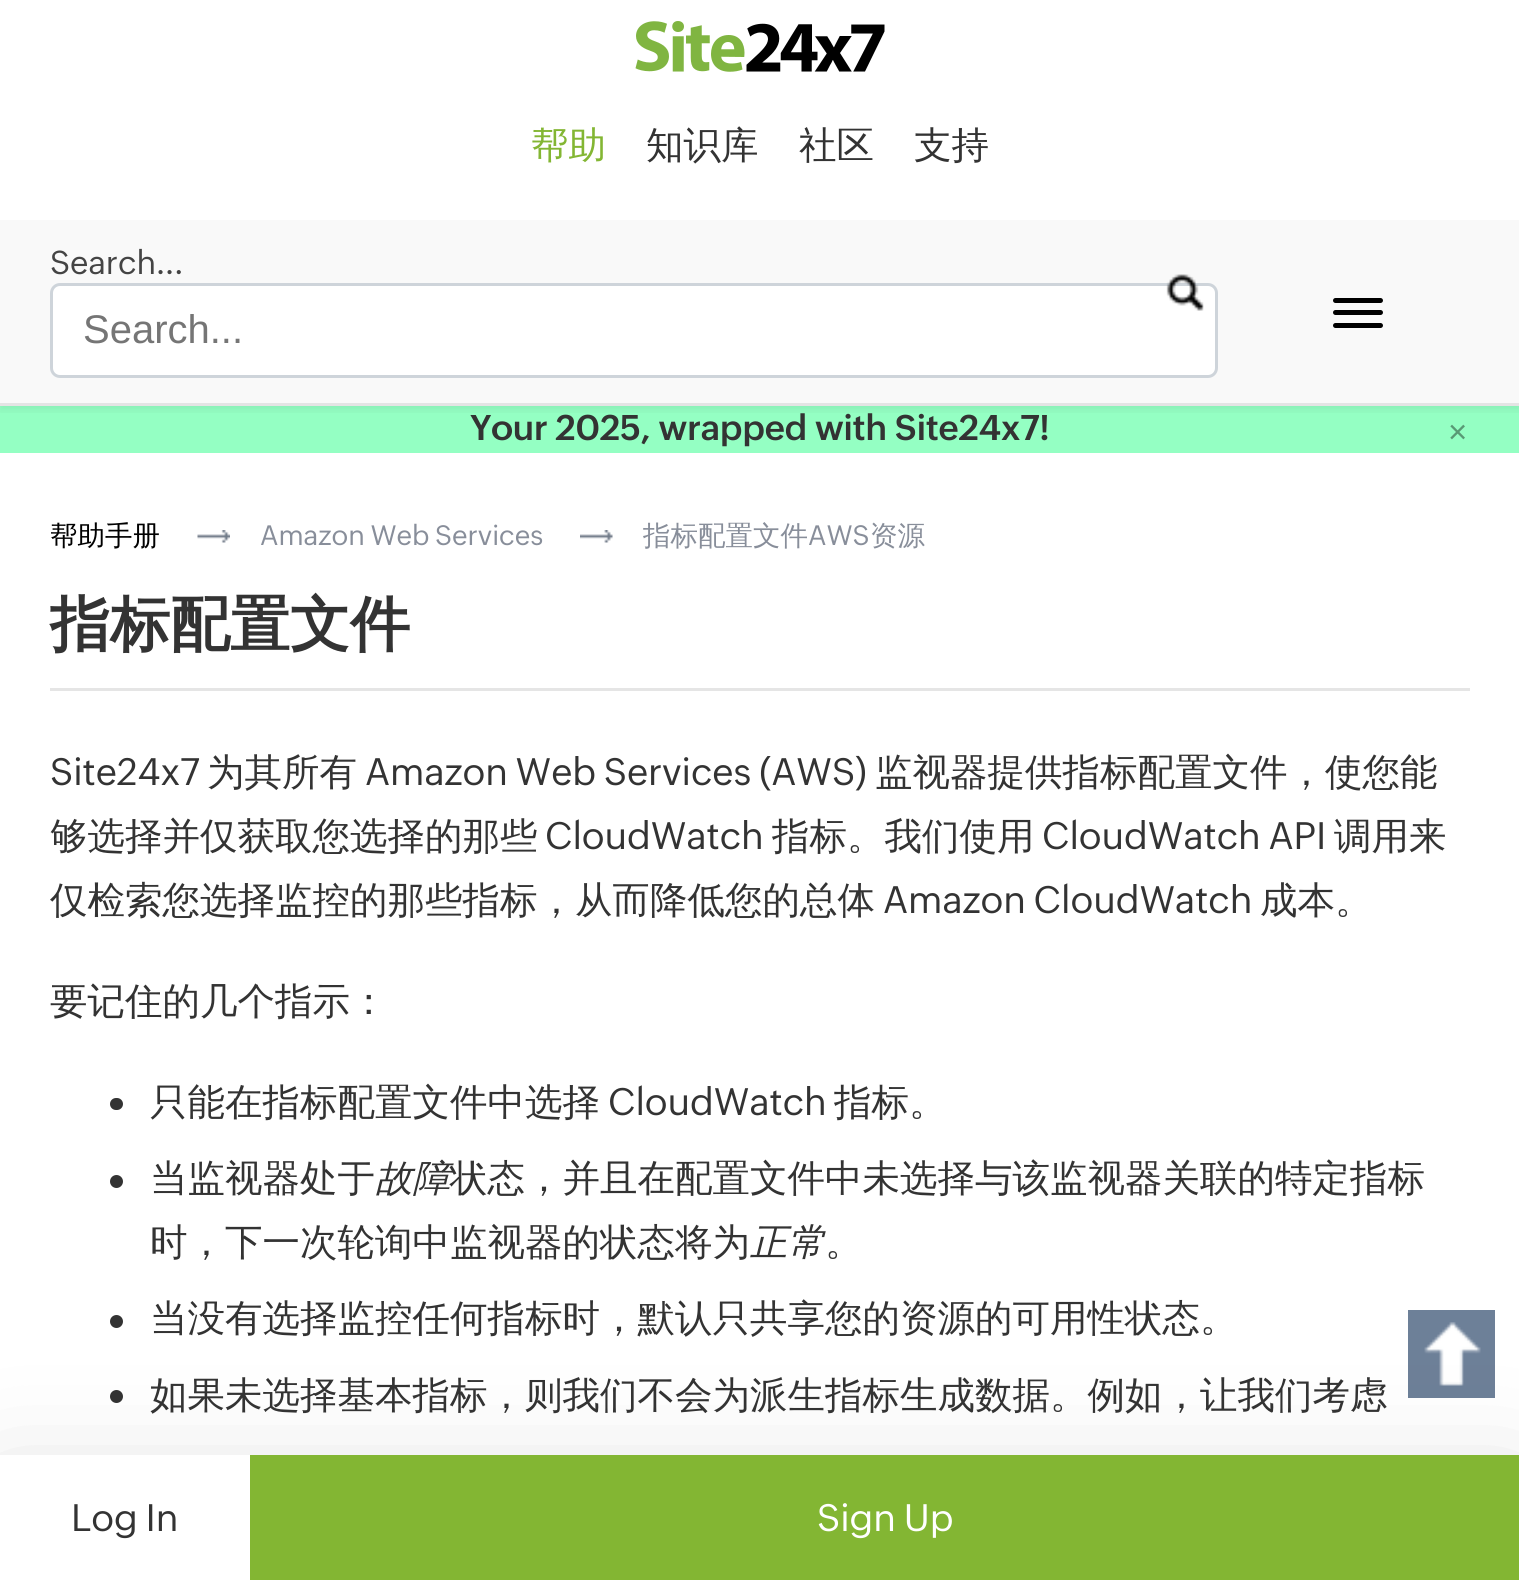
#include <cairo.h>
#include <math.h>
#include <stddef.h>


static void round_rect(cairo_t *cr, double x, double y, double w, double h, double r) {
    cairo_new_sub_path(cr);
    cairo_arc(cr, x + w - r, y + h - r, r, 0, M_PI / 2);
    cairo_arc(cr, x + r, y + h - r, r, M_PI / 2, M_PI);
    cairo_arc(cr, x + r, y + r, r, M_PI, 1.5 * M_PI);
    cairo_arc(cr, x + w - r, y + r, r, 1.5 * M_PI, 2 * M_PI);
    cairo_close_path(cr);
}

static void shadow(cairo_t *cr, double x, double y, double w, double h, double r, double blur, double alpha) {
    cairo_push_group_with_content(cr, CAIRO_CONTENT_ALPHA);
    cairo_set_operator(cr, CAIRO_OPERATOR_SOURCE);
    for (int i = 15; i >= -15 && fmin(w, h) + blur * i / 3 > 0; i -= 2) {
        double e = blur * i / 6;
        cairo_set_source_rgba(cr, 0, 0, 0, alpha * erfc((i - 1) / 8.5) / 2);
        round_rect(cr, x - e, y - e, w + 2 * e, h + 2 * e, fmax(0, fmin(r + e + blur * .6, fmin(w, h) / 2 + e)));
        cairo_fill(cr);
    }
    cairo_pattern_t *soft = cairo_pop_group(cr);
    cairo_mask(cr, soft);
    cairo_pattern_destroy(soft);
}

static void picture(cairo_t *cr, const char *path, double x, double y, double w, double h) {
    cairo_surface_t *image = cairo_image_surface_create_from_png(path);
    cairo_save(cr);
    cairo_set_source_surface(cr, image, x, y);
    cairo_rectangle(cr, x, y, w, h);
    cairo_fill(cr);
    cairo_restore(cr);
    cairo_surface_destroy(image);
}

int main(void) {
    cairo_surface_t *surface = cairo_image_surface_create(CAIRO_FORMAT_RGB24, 1519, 1580);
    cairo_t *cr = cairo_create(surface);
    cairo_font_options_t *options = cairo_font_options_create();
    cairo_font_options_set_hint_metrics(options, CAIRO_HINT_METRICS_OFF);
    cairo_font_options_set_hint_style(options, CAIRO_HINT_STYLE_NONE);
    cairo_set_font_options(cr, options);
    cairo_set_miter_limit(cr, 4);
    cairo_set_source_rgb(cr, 1, 1, 1);
    cairo_paint(cr);
    cairo_set_source_rgb(cr, 0.58, 1, 0.765);
    cairo_rectangle(cr, 0, 406, 1519, 47);
    cairo_fill(cr);
    cairo_save(cr);
    cairo_rectangle(cr, 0, 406, 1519, 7);
    cairo_clip(cr);
    cairo_set_source_rgb(cr, 0, 0, 0);
    shadow(cr, 0, 5, 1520, 405, 0, 5, 0.07);
    cairo_restore(cr);
    picture(cr, "img1.png", 635, 21, 250, 51);
    cairo_select_font_face(cr, "WenQuanYi Zen Hei Medium", CAIRO_FONT_SLANT_NORMAL, CAIRO_FONT_WEIGHT_NORMAL);
    cairo_set_font_size(cr, 37.5);
    cairo_set_source_rgb(cr, 0.514, 0.714, 0.2);
    cairo_move_to(cr, 531, 158);
    cairo_show_text(cr, "帮助");
    cairo_set_source_rgb(cr, 0.2, 0.2, 0.2);
    cairo_move_to(cr, 646, 158);
    cairo_show_text(cr, "知识库");
    cairo_move_to(cr, 799, 158);
    cairo_show_text(cr, "社区");
    cairo_move_to(cr, 914, 158);
    cairo_show_text(cr, "支持");
    cairo_new_path(cr);
    cairo_arc(cr, 116.5, 1321.5, 6.5, 0, 2 * M_PI);
    cairo_fill(cr);
    cairo_arc(cr, 116.5, 1396.5, 6.5, 0, 2 * M_PI);
    cairo_fill(cr);
    cairo_set_source_rgb(cr, 0.427, 0.502, 0.596);
    cairo_rectangle(cr, 1408, 1310, 87, 88);
    cairo_fill(cr);
    picture(cr, "img5.png", 1424, 1322, 57, 64);
    cairo_set_source_rgb(cr, 0, 0, 0);
    shadow(cr, 0, 1495, 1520, 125, 0, 60, 0.18);
    cairo_set_source_rgb(cr, 1, 1, 1);
    cairo_rectangle(cr, 0, 1455, 250, 125);
    cairo_fill(cr);
    cairo_select_font_face(cr, "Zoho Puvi", CAIRO_FONT_SLANT_NORMAL, CAIRO_FONT_WEIGHT_NORMAL);
    cairo_set_source_rgb(cr, 0.2, 0.2, 0.2);
    cairo_move_to(cr, 71, 1531);
    cairo_show_text(cr, "Log In");
    cairo_set_source_rgb(cr, 0.514, 0.714, 0.2);
    cairo_rectangle(cr, 250, 1455, 1269, 125);
    cairo_fill(cr);
    cairo_set_source_rgb(cr, 1, 1, 1);
    cairo_move_to(cr, 817, 1531);
    cairo_show_text(cr, "Sign Up");
    cairo_set_source_rgb(cr, 0.973, 0.973, 0.973);
    cairo_rectangle(cr, 0, 220, 1519, 183);
    cairo_fill(cr);
    cairo_set_source_rgb(cr, 0.894, 0.894, 0.894);
    cairo_rectangle(cr, 0, 403, 1519, 3);
    cairo_fill(cr);
    cairo_set_font_size(cr, 32.5);
    cairo_set_source_rgb(cr, 0.267, 0.267, 0.267);
    cairo_move_to(cr, 50, 274);
    cairo_show_text(cr, "Search...");
    cairo_set_source_rgb(cr, 1, 1, 1);
    round_rect(cr, 51.5, 284.5, 1165, 92, 8.5);
    cairo_fill_preserve(cr);
    cairo_set_source_rgb(cr, 0.808, 0.831, 0.855);
    cairo_set_line_width(cr, 3);
    cairo_stroke(cr);
    picture(cr, "img2.png", 1166, 274, 38, 37);
    cairo_select_font_face(cr, "Liberation Sans", CAIRO_FONT_SLANT_NORMAL, CAIRO_FONT_WEIGHT_NORMAL);
    cairo_set_font_size(cr, 40);
    cairo_set_source_rgb(cr, 0.459, 0.459, 0.459);
    cairo_move_to(cr, 83, 343);
    cairo_show_text(cr, "Search...");
    cairo_set_source_rgb(cr, 0, 0, 0);
    round_rect(cr, 1333, 298, 50, 5, 2.5);
    cairo_fill(cr);
    round_rect(cr, 1333, 310, 50, 5, 2.5);
    cairo_fill(cr);
    round_rect(cr, 1333, 323, 50, 5, 2.5);
    cairo_fill(cr);
    cairo_select_font_face(cr, "Zoho Puvi SemiBold", CAIRO_FONT_SLANT_NORMAL, CAIRO_FONT_WEIGHT_NORMAL);
    cairo_set_font_size(cr, 35);
    cairo_set_source_rgb(cr, 0.2, 0.2, 0.2);
    cairo_move_to(cr, 470, 440);
    cairo_show_text(cr, "Your 2025, wrapped with Site24x7!");
    cairo_select_font_face(cr, "Liberation Sans", CAIRO_FONT_SLANT_NORMAL, CAIRO_FONT_WEIGHT_NORMAL);
    cairo_set_font_size(cr, 33);
    cairo_set_source_rgb(cr, 0.349, 0.6, 0.459);
    cairo_move_to(cr, 1448, 443);
    cairo_show_text(cr, "×");
    cairo_select_font_face(cr, "WenQuanYi Zen Hei Medium", CAIRO_FONT_SLANT_NORMAL, CAIRO_FONT_WEIGHT_NORMAL);
    cairo_set_font_size(cr, 27.5);
    cairo_set_source_rgb(cr, 0, 0, 0);
    cairo_move_to(cr, 50, 545);
    cairo_show_text(cr, "帮助手册");
    picture(cr, "img3.png", 197, 530, 33, 13);
    cairo_select_font_face(cr, "Zoho Puvi", CAIRO_FONT_SLANT_NORMAL, CAIRO_FONT_WEIGHT_NORMAL);
    cairo_set_source_rgb(cr, 0.533, 0.557, 0.604);
    cairo_move_to(cr, 260, 545);
    cairo_show_text(cr, "Amazon Web Services");
    picture(cr, "img4.png", 580, 530, 33, 13);
    cairo_select_font_face(cr, "WenQuanYi Zen Hei Medium", CAIRO_FONT_SLANT_NORMAL, CAIRO_FONT_WEIGHT_NORMAL);
    cairo_move_to(cr, 643, 545);
    cairo_show_text(cr, "指标配置文件");
    cairo_select_font_face(cr, "Zoho Puvi", CAIRO_FONT_SLANT_NORMAL, CAIRO_FONT_WEIGHT_NORMAL);
    cairo_move_to(cr, 808, 545);
    cairo_show_text(cr, "AWS");
    cairo_select_font_face(cr, "WenQuanYi Zen Hei Medium", CAIRO_FONT_SLANT_NORMAL, CAIRO_FONT_WEIGHT_NORMAL);
    cairo_move_to(cr, 870, 545);
    cairo_show_text(cr, "资源");
    cairo_set_source_rgb(cr, 0.898, 0.898, 0.898);
    cairo_rectangle(cr, 50, 688, 1420, 3);
    cairo_fill(cr);
    cairo_select_font_face(cr, "WenQuanYi Zen Hei", CAIRO_FONT_SLANT_NORMAL, CAIRO_FONT_WEIGHT_BOLD);
    cairo_set_font_size(cr, 60);
    cairo_set_source_rgb(cr, 0.2, 0.2, 0.2);
    cairo_move_to(cr, 50, 645);
    cairo_show_text(cr, "指标配置文件");
    cairo_select_font_face(cr, "Zoho Puvi", CAIRO_FONT_SLANT_NORMAL, CAIRO_FONT_WEIGHT_NORMAL);
    cairo_set_font_size(cr, 37.5);
    cairo_move_to(cr, 50, 785);
    cairo_show_text(cr, "Site24x7");
    cairo_select_font_face(cr, "WenQuanYi Zen Hei Medium", CAIRO_FONT_SLANT_NORMAL, CAIRO_FONT_WEIGHT_NORMAL);
    cairo_move_to(cr, 207, 785);
    cairo_show_text(cr, "为其所有");
    cairo_select_font_face(cr, "Zoho Puvi", CAIRO_FONT_SLANT_NORMAL, CAIRO_FONT_WEIGHT_NORMAL);
    cairo_move_to(cr, 365, 785);
    cairo_show_text(cr, "Amazon Web Services (AWS)");
    cairo_select_font_face(cr, "WenQuanYi Zen Hei Medium", CAIRO_FONT_SLANT_NORMAL, CAIRO_FONT_WEIGHT_NORMAL);
    cairo_move_to(cr, 875, 785);
    cairo_show_text(cr, "监视器提供指标配置文件，使您能");
    cairo_move_to(cr, 50, 849);
    cairo_show_text(cr, "够选择并仅获取您选择的那些");
    cairo_select_font_face(cr, "Zoho Puvi", CAIRO_FONT_SLANT_NORMAL, CAIRO_FONT_WEIGHT_NORMAL);
    cairo_move_to(cr, 545, 849);
    cairo_show_text(cr, "CloudWatch");
    cairo_select_font_face(cr, "WenQuanYi Zen Hei Medium", CAIRO_FONT_SLANT_NORMAL, CAIRO_FONT_WEIGHT_NORMAL);
    cairo_move_to(cr, 772, 849);
    cairo_show_text(cr, "指标。我们使用");
    cairo_select_font_face(cr, "Zoho Puvi", CAIRO_FONT_SLANT_NORMAL, CAIRO_FONT_WEIGHT_NORMAL);
    cairo_move_to(cr, 1042, 849);
    cairo_show_text(cr, "CloudWatch API");
    cairo_select_font_face(cr, "WenQuanYi Zen Hei Medium", CAIRO_FONT_SLANT_NORMAL, CAIRO_FONT_WEIGHT_NORMAL);
    cairo_move_to(cr, 1334, 849);
    cairo_show_text(cr, "调用来");
    cairo_move_to(cr, 50, 913);
    cairo_show_text(cr, "仅检索您选择监控的那些指标，从而降低您的总体");
    cairo_select_font_face(cr, "Zoho Puvi", CAIRO_FONT_SLANT_NORMAL, CAIRO_FONT_WEIGHT_NORMAL);
    cairo_move_to(cr, 883, 913);
    cairo_show_text(cr, "Amazon CloudWatch");
    cairo_select_font_face(cr, "WenQuanYi Zen Hei Medium", CAIRO_FONT_SLANT_NORMAL, CAIRO_FONT_WEIGHT_NORMAL);
    cairo_move_to(cr, 1260, 913);
    cairo_show_text(cr, "成本。");
    cairo_move_to(cr, 50, 1014);
    cairo_show_text(cr, "要记住的几个指示：");
    round_rect(cr, 110, 1098, 13, 12, 6);
    cairo_fill(cr);
    cairo_move_to(cr, 150, 1115);
    cairo_show_text(cr, "只能在指标配置文件中选择");
    cairo_select_font_face(cr, "Zoho Puvi", CAIRO_FONT_SLANT_NORMAL, CAIRO_FONT_WEIGHT_NORMAL);
    cairo_move_to(cr, 608, 1115);
    cairo_show_text(cr, "CloudWatch");
    cairo_select_font_face(cr, "WenQuanYi Zen Hei Medium", CAIRO_FONT_SLANT_NORMAL, CAIRO_FONT_WEIGHT_NORMAL);
    cairo_move_to(cr, 834, 1115);
    cairo_show_text(cr, "指标。");
    cairo_new_path(cr);
    cairo_arc(cr, 116.5, 1181.5, 6.5, 0, 2 * M_PI);
    cairo_fill(cr);
    cairo_move_to(cr, 150, 1191);
    cairo_show_text(cr, "当监视器处于");
    cairo_select_font_face(cr, "WenQuanYi Zen Hei Medium", CAIRO_FONT_SLANT_ITALIC, CAIRO_FONT_WEIGHT_NORMAL);
    cairo_move_to(cr, 375, 1191);
    cairo_show_text(cr, "故障");
    cairo_select_font_face(cr, "WenQuanYi Zen Hei Medium", CAIRO_FONT_SLANT_NORMAL, CAIRO_FONT_WEIGHT_NORMAL);
    cairo_move_to(cr, 450, 1191);
    cairo_show_text(cr, "状态，并且在配置文件中未选择与该监视器关联的特定指标");
    cairo_move_to(cr, 150, 1255);
    cairo_show_text(cr, "时，下一次轮询中监视器的状态将为");
    cairo_select_font_face(cr, "WenQuanYi Zen Hei Medium", CAIRO_FONT_SLANT_ITALIC, CAIRO_FONT_WEIGHT_NORMAL);
    cairo_move_to(cr, 750, 1255);
    cairo_show_text(cr, "正常");
    cairo_select_font_face(cr, "WenQuanYi Zen Hei Medium", CAIRO_FONT_SLANT_NORMAL, CAIRO_FONT_WEIGHT_NORMAL);
    cairo_move_to(cr, 825, 1255);
    cairo_show_text(cr, "。");
    cairo_move_to(cr, 150, 1331);
    cairo_show_text(cr, "当没有选择监控任何指标时，默认只共享您的资源的可用性状态。");
    cairo_move_to(cr, 150, 1408);
    cairo_show_text(cr, "如果未选择基本指标，则我们不会为派生指标生成数据。例如，让我们考虑");
    cairo_surface_write_to_png(surface, "page.png");
    cairo_font_options_destroy(options);
    cairo_destroy(cr);
    cairo_surface_destroy(surface);
    return 0;
}
